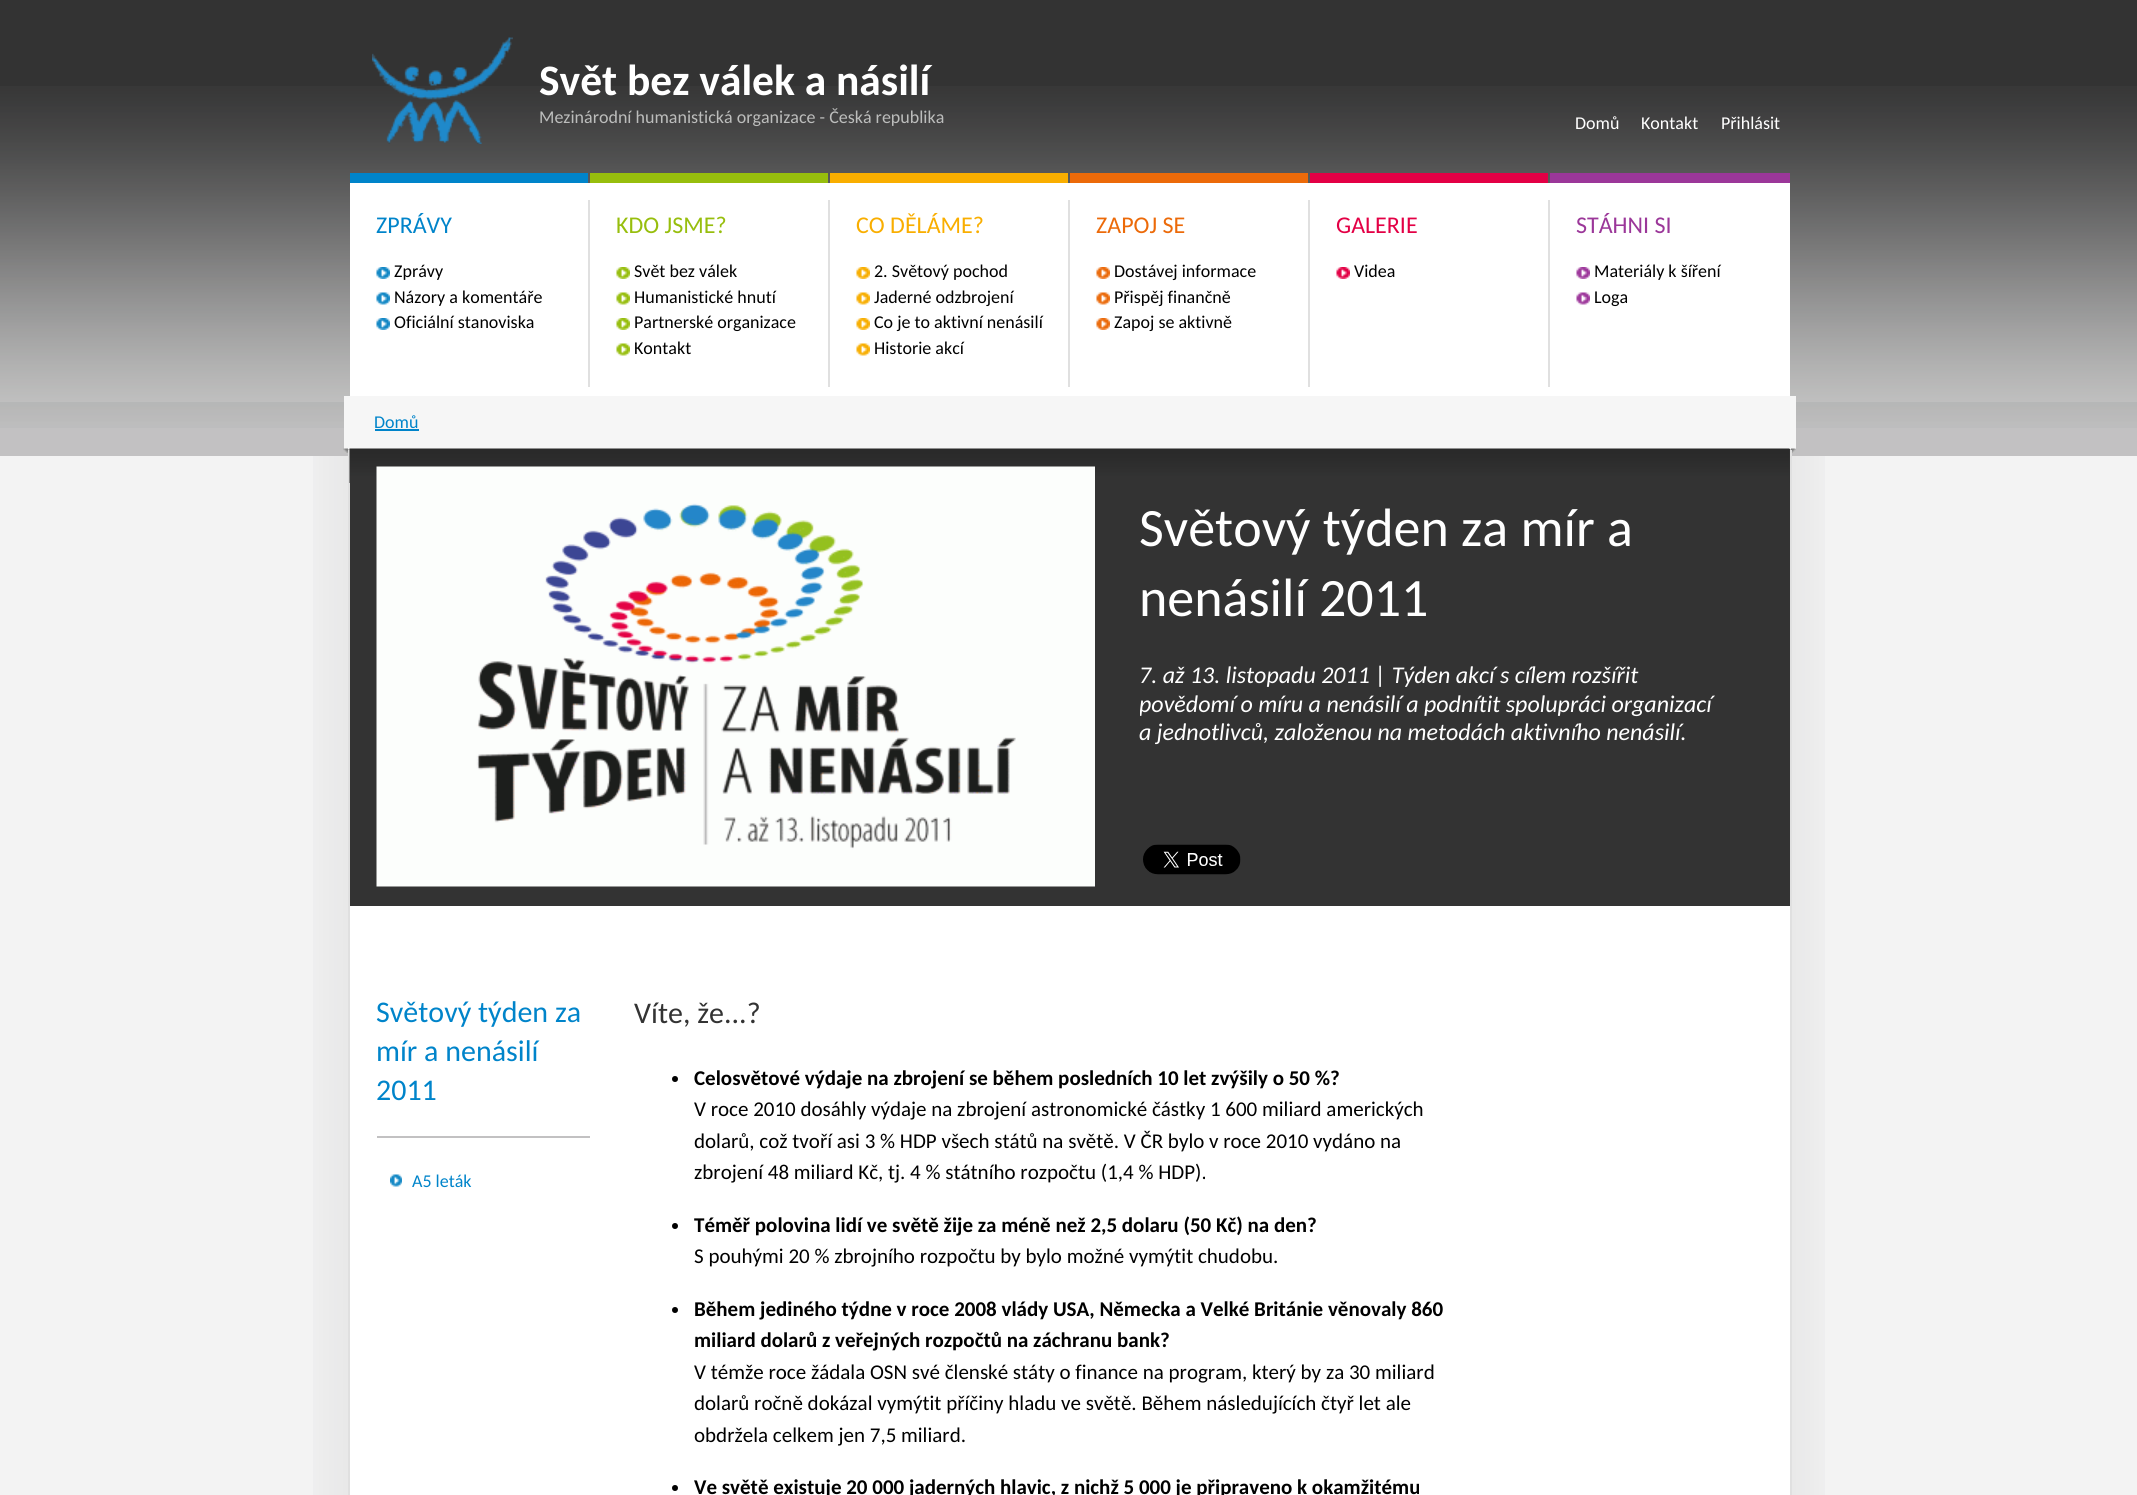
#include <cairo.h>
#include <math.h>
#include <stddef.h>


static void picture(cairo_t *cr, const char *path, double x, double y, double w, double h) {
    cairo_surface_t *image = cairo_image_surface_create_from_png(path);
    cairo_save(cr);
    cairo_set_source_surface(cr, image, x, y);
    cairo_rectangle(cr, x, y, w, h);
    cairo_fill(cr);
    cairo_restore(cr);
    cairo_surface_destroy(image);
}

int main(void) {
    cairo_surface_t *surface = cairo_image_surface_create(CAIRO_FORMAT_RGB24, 2137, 1495);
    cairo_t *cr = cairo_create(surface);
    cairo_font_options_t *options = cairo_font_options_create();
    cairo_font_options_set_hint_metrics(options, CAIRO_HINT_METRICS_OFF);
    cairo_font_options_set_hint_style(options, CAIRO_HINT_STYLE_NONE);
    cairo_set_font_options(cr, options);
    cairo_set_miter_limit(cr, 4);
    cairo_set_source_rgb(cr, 0.761, 0.757, 0.761);
    cairo_paint(cr);
    cairo_set_source_rgb(cr, 0.2, 0.2, 0.2);
    cairo_rectangle(cr, 0, 0, 2137, 86);
    cairo_fill(cr);
    picture(cr, "img1.png", 0, 86, 2137, 316);
    picture(cr, "img2.png", 372, 37, 141, 107);
    cairo_select_font_face(cr, "Carlito", CAIRO_FONT_SLANT_NORMAL, CAIRO_FONT_WEIGHT_BOLD);
    cairo_set_font_size(cr, 43.5);
    cairo_set_source_rgb(cr, 1, 1, 1);
    cairo_move_to(cr, 539, 95);
    cairo_show_text(cr, "Svět bez válek a násilí");
    cairo_select_font_face(cr, "Carlito", CAIRO_FONT_SLANT_NORMAL, CAIRO_FONT_WEIGHT_NORMAL);
    cairo_set_font_size(cr, 18);
    cairo_set_source_rgb(cr, 0.737, 0.741, 0.737);
    cairo_move_to(cr, 539, 123);
    cairo_show_text(cr, "Mezinárodní humanistická organizace - Česká republika");
    cairo_set_source_rgb(cr, 1, 1, 1);
    cairo_move_to(cr, 1575, 129);
    cairo_show_text(cr, "Domů");
    cairo_move_to(cr, 1641, 129);
    cairo_show_text(cr, "Kontakt");
    cairo_move_to(cr, 1721, 129);
    cairo_show_text(cr, "Přihlásit");
    cairo_rectangle(cr, 350, 183, 1440, 213);
    cairo_fill(cr);
    cairo_set_source_rgb(cr, 0.878, 0.878, 0.878);
    cairo_rectangle(cr, 588, 200, 2, 187);
    cairo_fill(cr);
    cairo_set_source_rgb(cr, 0, 0.518, 0.792);
    cairo_rectangle(cr, 350, 173, 238, 10);
    cairo_fill(cr);
    cairo_set_font_size(cr, 24);
    cairo_move_to(cr, 376, 233);
    cairo_show_text(cr, "ZPRÁVY");
    picture(cr, "img3.png", 376, 267, 14, 12);
    cairo_set_font_size(cr, 18);
    cairo_set_source_rgb(cr, 0, 0, 0);
    cairo_move_to(cr, 394, 277);
    cairo_show_text(cr, "Zprávy");
    picture(cr, "img4.png", 376, 292, 14, 13);
    cairo_move_to(cr, 394, 303);
    cairo_show_text(cr, "Názory a komentáře");
    picture(cr, "img3.png", 376, 318, 14, 12);
    cairo_move_to(cr, 394, 328);
    cairo_show_text(cr, "Oficiální stanoviska");
    cairo_set_source_rgb(cr, 0.878, 0.878, 0.878);
    cairo_rectangle(cr, 828, 200, 2, 187);
    cairo_fill(cr);
    cairo_set_source_rgb(cr, 0.592, 0.745, 0.051);
    cairo_rectangle(cr, 590, 173, 238, 10);
    cairo_fill(cr);
    cairo_set_font_size(cr, 24);
    cairo_move_to(cr, 616, 233);
    cairo_show_text(cr, "KDO JSME?");
    picture(cr, "img5.png", 616, 267, 14, 12);
    cairo_set_font_size(cr, 18);
    cairo_set_source_rgb(cr, 0, 0, 0);
    cairo_move_to(cr, 634, 277);
    cairo_show_text(cr, "Svět bez válek");
    picture(cr, "img6.png", 616, 292, 14, 13);
    cairo_move_to(cr, 634, 303);
    cairo_show_text(cr, "Humanistické hnutí");
    picture(cr, "img5.png", 616, 318, 14, 12);
    cairo_move_to(cr, 634, 328);
    cairo_show_text(cr, "Partnerské organizace");
    picture(cr, "img6.png", 616, 343, 14, 13);
    cairo_move_to(cr, 634, 354);
    cairo_show_text(cr, "Kontakt");
    cairo_set_source_rgb(cr, 0.878, 0.878, 0.878);
    cairo_rectangle(cr, 1068, 200, 2, 187);
    cairo_fill(cr);
    cairo_set_source_rgb(cr, 0.973, 0.682, 0);
    cairo_rectangle(cr, 830, 173, 238, 10);
    cairo_fill(cr);
    cairo_set_font_size(cr, 24);
    cairo_move_to(cr, 856, 233);
    cairo_show_text(cr, "CO DĚLÁME?");
    picture(cr, "img7.png", 856, 267, 14, 12);
    cairo_set_font_size(cr, 18);
    cairo_set_source_rgb(cr, 0, 0, 0);
    cairo_move_to(cr, 874, 277);
    cairo_show_text(cr, "2. Světový pochod");
    picture(cr, "img8.png", 856, 292, 14, 13);
    cairo_move_to(cr, 874, 303);
    cairo_show_text(cr, "Jaderné odzbrojení");
    picture(cr, "img7.png", 856, 318, 14, 12);
    cairo_move_to(cr, 874, 328);
    cairo_show_text(cr, "Co je to aktivní nenásilí");
    picture(cr, "img8.png", 856, 343, 14, 13);
    cairo_move_to(cr, 874, 354);
    cairo_show_text(cr, "Historie akcí");
    cairo_set_source_rgb(cr, 0.878, 0.878, 0.878);
    cairo_rectangle(cr, 1308, 200, 2, 187);
    cairo_fill(cr);
    cairo_set_source_rgb(cr, 0.922, 0.416, 0.039);
    cairo_rectangle(cr, 1070, 173, 238, 10);
    cairo_fill(cr);
    cairo_set_font_size(cr, 24);
    cairo_move_to(cr, 1096, 233);
    cairo_show_text(cr, "ZAPOJ SE");
    picture(cr, "img9.png", 1096, 267, 14, 12);
    cairo_set_font_size(cr, 18);
    cairo_set_source_rgb(cr, 0, 0, 0);
    cairo_move_to(cr, 1114, 277);
    cairo_show_text(cr, "Dostávej informace");
    picture(cr, "img10.png", 1096, 292, 14, 13);
    cairo_move_to(cr, 1114, 303);
    cairo_show_text(cr, "Přispěj finančně");
    picture(cr, "img9.png", 1096, 318, 14, 12);
    cairo_move_to(cr, 1114, 328);
    cairo_show_text(cr, "Zapoj se aktivně");
    cairo_set_source_rgb(cr, 0.878, 0.878, 0.878);
    cairo_rectangle(cr, 1548, 200, 2, 187);
    cairo_fill(cr);
    cairo_set_source_rgb(cr, 0.89, 0, 0.271);
    cairo_rectangle(cr, 1310, 173, 238, 10);
    cairo_fill(cr);
    cairo_set_font_size(cr, 24);
    cairo_move_to(cr, 1336, 233);
    cairo_show_text(cr, "GALERIE");
    picture(cr, "img11.png", 1336, 267, 14, 12);
    cairo_set_font_size(cr, 18);
    cairo_set_source_rgb(cr, 0, 0, 0);
    cairo_move_to(cr, 1354, 277);
    cairo_show_text(cr, "Videa");
    cairo_set_source_rgb(cr, 0.608, 0.216, 0.6);
    cairo_rectangle(cr, 1550, 173, 240, 10);
    cairo_fill(cr);
    cairo_set_font_size(cr, 24);
    cairo_move_to(cr, 1576, 233);
    cairo_show_text(cr, "STÁHNI SI");
    picture(cr, "img12.png", 1576, 267, 14, 12);
    cairo_set_font_size(cr, 18);
    cairo_set_source_rgb(cr, 0, 0, 0);
    cairo_move_to(cr, 1594, 277);
    cairo_show_text(cr, "Materiály k šíření");
    picture(cr, "img13.png", 1576, 292, 14, 13);
    cairo_move_to(cr, 1594, 303);
    cairo_show_text(cr, "Loga");
    picture(cr, "img14.png", 0, 402, 2137, 26);
    cairo_set_source_rgb(cr, 0.961, 0.961, 0.961);
    cairo_rectangle(cr, 344, 396, 1452, 53);
    cairo_fill(cr);
    cairo_set_source_rgb(cr, 0, 0.518, 0.792);
    cairo_move_to(cr, 374, 428);
    cairo_show_text(cr, "Domů");
    cairo_rectangle(cr, 375, 429, 44, 2);
    cairo_fill(cr);
    picture(cr, "img15.png", 343, 448, 5, 5);
    picture(cr, "img16.png", 1791, 448, 5, 5);
    cairo_set_source_rgb(cr, 0.953, 0.953, 0.953);
    cairo_rectangle(cr, 0, 456, 2137, 1039);
    cairo_fill(cr);
    picture(cr, "img17.png", 313, 456, 1512, 1039);
    cairo_set_source_rgb(cr, 1, 1, 1);
    cairo_rectangle(cr, 350, 906, 1440, 589);
    cairo_fill(cr);
    cairo_set_source_rgb(cr, 0.878, 0.878, 0.878);
    cairo_rectangle(cr, 1790, 450, 2, 1045);
    cairo_fill(cr);
    cairo_rectangle(cr, 348, 450, 2, 1045);
    cairo_fill(cr);
    cairo_set_source_rgb(cr, 0.2, 0.2, 0.2);
    cairo_rectangle(cr, 350, 449, 1440, 457);
    cairo_fill(cr);
    picture(cr, "img18.png", 349, 448, 1441, 35);
    picture(cr, "img19.png", 376, 466, 719, 421);
    cairo_set_font_size(cr, 54);
    cairo_set_source_rgb(cr, 1, 1, 1);
    cairo_move_to(cr, 1139, 546);
    cairo_show_text(cr, "Světový týden za mír a");
    cairo_move_to(cr, 1139, 616);
    cairo_show_text(cr, "nenásilí 2011");
    cairo_select_font_face(cr, "Carlito", CAIRO_FONT_SLANT_ITALIC, CAIRO_FONT_WEIGHT_NORMAL);
    cairo_set_font_size(cr, 24);
    cairo_move_to(cr, 1139, 683);
    cairo_show_text(cr, "7. až 13. listopadu 2011 | Týden akcí s cílem rozšířit");
    cairo_save(cr);
    cairo_rectangle(cr, 1140, 467, 575, 301);
    cairo_clip(cr);
    cairo_move_to(cr, 1139, 712);
    cairo_show_text(cr, "povědomí o míru a nenásilí a podnítit spolupráci organizací");
    cairo_restore(cr);
    cairo_move_to(cr, 1139, 740);
    cairo_show_text(cr, "a jednotlivců, založenou na metodách aktivního nenásilí.");
    picture(cr, "img20.png", 1143, 844, 98, 31);
    cairo_set_source_rgb(cr, 0.761, 0.757, 0.761);
    cairo_rectangle(cr, 377, 1136, 213, 2);
    cairo_fill(cr);
    cairo_select_font_face(cr, "Carlito", CAIRO_FONT_SLANT_NORMAL, CAIRO_FONT_WEIGHT_NORMAL);
    cairo_set_font_size(cr, 30);
    cairo_set_source_rgb(cr, 0, 0.518, 0.792);
    cairo_move_to(cr, 376, 1022);
    cairo_show_text(cr, "Světový týden za");
    cairo_move_to(cr, 376, 1061);
    cairo_show_text(cr, "mír a nenásilí");
    cairo_move_to(cr, 376, 1100);
    cairo_show_text(cr, "2011");
    picture(cr, "img21.png", 390, 1174, 12, 13);
    cairo_set_font_size(cr, 18);
    cairo_move_to(cr, 412, 1187);
    cairo_show_text(cr, "A5 leták");
    cairo_set_font_size(cr, 30);
    cairo_set_source_rgb(cr, 0.2, 0.2, 0.2);
    cairo_move_to(cr, 634, 1023);
    cairo_show_text(cr, "Víte, že...?");
    cairo_set_source_rgb(cr, 0, 0, 0);
    cairo_new_path(cr);
    cairo_arc(cr, 675, 1079, 3, 0, 2 * M_PI);
    cairo_fill(cr);
    cairo_select_font_face(cr, "Carlito", CAIRO_FONT_SLANT_NORMAL, CAIRO_FONT_WEIGHT_BOLD);
    cairo_set_font_size(cr, 21);
    cairo_move_to(cr, 694, 1085);
    cairo_show_text(cr, "Celosvětové výdaje na zbrojení se během posledních 10 let zvýšily o 50 %?");
    cairo_select_font_face(cr, "Carlito", CAIRO_FONT_SLANT_NORMAL, CAIRO_FONT_WEIGHT_NORMAL);
    cairo_move_to(cr, 694, 1116);
    cairo_show_text(cr, "V roce 2010 dosáhly výdaje na zbrojení astronomické částky 1 600 miliard amerických");
    cairo_move_to(cr, 694, 1148);
    cairo_show_text(cr, "dolarů, což tvoří asi 3 % HDP všech států na světě. V ČR bylo v roce 2010 vydáno na");
    cairo_move_to(cr, 694, 1179);
    cairo_show_text(cr, "zbrojení 48 miliard Kč, tj. 4 % státního rozpočtu (1,4 % HDP).");
    cairo_new_path(cr);
    cairo_arc(cr, 675, 1226, 3, 0, 2 * M_PI);
    cairo_fill(cr);
    cairo_select_font_face(cr, "Carlito", CAIRO_FONT_SLANT_NORMAL, CAIRO_FONT_WEIGHT_BOLD);
    cairo_move_to(cr, 694, 1232);
    cairo_show_text(cr, "Téměř polovina lidí ve světě žije za méně než 2,5 dolaru (50 Kč) na den?");
    cairo_select_font_face(cr, "Carlito", CAIRO_FONT_SLANT_NORMAL, CAIRO_FONT_WEIGHT_NORMAL);
    cairo_move_to(cr, 694, 1263);
    cairo_show_text(cr, "S pouhými 20 % zbrojního rozpočtu by bylo možné vymýtit chudobu.");
    cairo_new_path(cr);
    cairo_arc(cr, 675, 1310, 3, 0, 2 * M_PI);
    cairo_fill(cr);
    cairo_select_font_face(cr, "Carlito", CAIRO_FONT_SLANT_NORMAL, CAIRO_FONT_WEIGHT_BOLD);
    cairo_move_to(cr, 694, 1316);
    cairo_show_text(cr, "Během jediného týdne v roce 2008 vlády USA, Německa a Velké Británie věnovaly 860");
    cairo_move_to(cr, 694, 1347);
    cairo_show_text(cr, "miliard dolarů z veřejných rozpočtů na záchranu bank?");
    cairo_select_font_face(cr, "Carlito", CAIRO_FONT_SLANT_NORMAL, CAIRO_FONT_WEIGHT_NORMAL);
    cairo_move_to(cr, 694, 1379);
    cairo_show_text(cr, "V témže roce žádala OSN své členské státy o finance na program, který by za 30 miliard");
    cairo_move_to(cr, 694, 1410);
    cairo_show_text(cr, "dolarů ročně dokázal vymýtit příčiny hladu ve světě. Během následujících čtyř let ale");
    cairo_move_to(cr, 694, 1442);
    cairo_show_text(cr, "obdržela celkem jen 7,5 miliard.");
    cairo_new_path(cr);
    cairo_arc(cr, 675, 1488, 3, 0, 2 * M_PI);
    cairo_fill(cr);
    cairo_select_font_face(cr, "Carlito", CAIRO_FONT_SLANT_NORMAL, CAIRO_FONT_WEIGHT_BOLD);
    cairo_move_to(cr, 694, 1494);
    cairo_show_text(cr, "Ve světě existuje 20 000 jaderných hlavic, z nichž 5 000 je připraveno k okamžitému");
    cairo_surface_write_to_png(surface, "page.png");
    cairo_font_options_destroy(options);
    cairo_destroy(cr);
    cairo_surface_destroy(surface);
    return 0;
}
